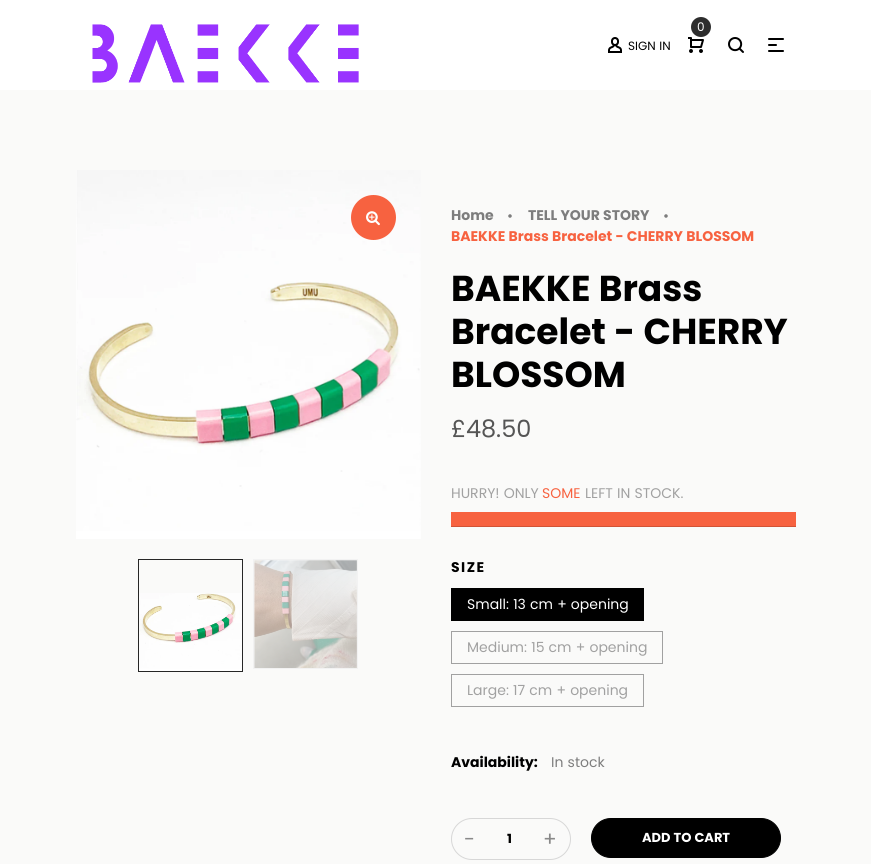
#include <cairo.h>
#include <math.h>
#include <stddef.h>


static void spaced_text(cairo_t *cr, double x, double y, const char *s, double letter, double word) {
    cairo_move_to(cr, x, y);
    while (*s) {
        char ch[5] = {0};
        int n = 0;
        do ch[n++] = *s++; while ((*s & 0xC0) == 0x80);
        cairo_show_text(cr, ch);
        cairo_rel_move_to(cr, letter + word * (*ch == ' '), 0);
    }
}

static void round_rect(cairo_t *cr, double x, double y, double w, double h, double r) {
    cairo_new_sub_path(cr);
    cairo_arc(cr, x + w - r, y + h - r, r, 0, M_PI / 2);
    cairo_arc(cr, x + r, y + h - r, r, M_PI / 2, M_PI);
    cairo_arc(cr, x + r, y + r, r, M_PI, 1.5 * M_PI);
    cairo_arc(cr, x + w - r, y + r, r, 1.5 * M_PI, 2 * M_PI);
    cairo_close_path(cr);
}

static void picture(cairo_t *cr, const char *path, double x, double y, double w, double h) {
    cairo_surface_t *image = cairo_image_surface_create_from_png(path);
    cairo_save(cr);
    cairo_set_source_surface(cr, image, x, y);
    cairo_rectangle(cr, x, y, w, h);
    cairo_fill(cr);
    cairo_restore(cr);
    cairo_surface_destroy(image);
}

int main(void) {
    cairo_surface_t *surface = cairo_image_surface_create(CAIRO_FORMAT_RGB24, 871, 864);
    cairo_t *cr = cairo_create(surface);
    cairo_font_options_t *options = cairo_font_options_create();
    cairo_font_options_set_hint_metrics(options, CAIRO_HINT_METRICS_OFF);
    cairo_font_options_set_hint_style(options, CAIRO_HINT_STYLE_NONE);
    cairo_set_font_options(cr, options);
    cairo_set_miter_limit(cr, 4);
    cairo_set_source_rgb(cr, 1, 1, 1);
    cairo_paint(cr);
    picture(cr, "img1.png", 92, 24, 267, 59);
    cairo_set_source_rgb(cr, 0.176, 0.176, 0.176);
    cairo_arc(cr, 701, 27, 10, 0, 2 * M_PI);
    cairo_fill(cr);
    cairo_select_font_face(cr, "Poppins", CAIRO_FONT_SLANT_NORMAL, CAIRO_FONT_WEIGHT_NORMAL);
    cairo_set_font_size(cr, 12);
    cairo_set_source_rgb(cr, 1, 1, 1);
    cairo_move_to(cr, 697, 31);
    cairo_show_text(cr, "0");
    picture(cr, "img2.png", 688, 37, 16, 16);
    picture(cr, "img3.png", 608, 37, 14, 16);
    cairo_set_source_rgb(cr, 0, 0, 0);
    cairo_move_to(cr, 628, 50);
    cairo_show_text(cr, "SIGN IN");
    picture(cr, "img4.png", 728, 37, 16, 16);
    picture(cr, "img5.png", 768, 38, 16, 14);
    cairo_set_source_rgb(cr, 0.98, 0.98, 0.976);
    cairo_rectangle(cr, 0, 90, 871, 774);
    cairo_fill(cr);
    picture(cr, "img6.png", 76, 170, 345, 369);
    cairo_set_source_rgb(cr, 0.965, 0.384, 0.251);
    cairo_arc(cr, 373.5, 217.5, 22.5, 0, 2 * M_PI);
    cairo_fill(cr);
    picture(cr, "img7.png", 366, 211, 14, 15);
    cairo_rectangle(cr, 138.5, 559.5, 104, 112);
    cairo_set_source_rgb(cr, 0.149, 0.149, 0.149);
    cairo_set_line_width(cr, 1);
    cairo_stroke(cr);
    picture(cr, "img8.png", 139, 593, 103, 78);
    cairo_rectangle(cr, 253.5, 559.5, 104, 109);
    cairo_set_source_rgb(cr, 0.949, 0.949, 0.949);
    cairo_stroke(cr);
    picture(cr, "img9.png", 254, 560, 103, 108);
    cairo_select_font_face(cr, "Poppins", CAIRO_FONT_SLANT_NORMAL, CAIRO_FONT_WEIGHT_BOLD);
    cairo_set_font_size(cr, 14);
    cairo_set_source_rgb(cr, 0.49, 0.49, 0.49);
    cairo_move_to(cr, 451, 220);
    cairo_show_text(cr, "Home");
    cairo_set_font_size(cr, 12);
    cairo_move_to(cr, 507, 220);
    cairo_show_text(cr, "•");
    cairo_set_font_size(cr, 14);
    cairo_move_to(cr, 528, 220);
    cairo_show_text(cr, "TELL YOUR STORY");
    cairo_set_font_size(cr, 12);
    cairo_move_to(cr, 663, 220);
    cairo_show_text(cr, "•");
    cairo_set_font_size(cr, 14);
    cairo_set_source_rgb(cr, 0.965, 0.384, 0.251);
    cairo_move_to(cr, 451, 241);
    cairo_show_text(cr, "BAEKKE Brass Bracelet - CHERRY BLOSSOM");
    cairo_set_font_size(cr, 36);
    cairo_set_source_rgb(cr, 0, 0, 0);
    cairo_move_to(cr, 451, 301);
    cairo_show_text(cr, "BAEKKE Brass");
    cairo_move_to(cr, 451, 344);
    cairo_show_text(cr, "Bracelet - CHERRY");
    cairo_move_to(cr, 451, 387);
    cairo_show_text(cr, "BLOSSOM");
    cairo_select_font_face(cr, "Poppins", CAIRO_FONT_SLANT_NORMAL, CAIRO_FONT_WEIGHT_NORMAL);
    cairo_set_font_size(cr, 24);
    cairo_set_source_rgb(cr, 0.333, 0.333, 0.333);
    cairo_move_to(cr, 451, 437);
    cairo_show_text(cr, "£48.50");
    cairo_set_font_size(cr, 14);
    cairo_set_source_rgb(cr, 0.631, 0.631, 0.631);
    cairo_move_to(cr, 451, 498);
    cairo_show_text(cr, "HURRY! ONLY");
    cairo_set_source_rgb(cr, 0.965, 0.384, 0.251);
    cairo_move_to(cr, 542, 498);
    cairo_show_text(cr, "SOME");
    cairo_set_source_rgb(cr, 0.631, 0.631, 0.631);
    cairo_move_to(cr, 585, 498);
    cairo_show_text(cr, "LEFT IN STOCK.");
    cairo_set_source_rgb(cr, 0.965, 0.384, 0.251);
    cairo_rectangle(cr, 451, 512, 345, 14);
    cairo_fill(cr);
    cairo_set_source_rgb(cr, 0.82, 0.325, 0.212);
    cairo_rectangle(cr, 451, 526, 345, 1);
    cairo_fill(cr);
    cairo_select_font_face(cr, "Poppins", CAIRO_FONT_SLANT_NORMAL, CAIRO_FONT_WEIGHT_BOLD);
    cairo_set_source_rgb(cr, 0, 0, 0);
    spaced_text(cr, 451, 572, "SIZE", 1.5, 0);
    cairo_rectangle(cr, 451, 588, 193, 33);
    cairo_fill(cr);
    cairo_select_font_face(cr, "Poppins", CAIRO_FONT_SLANT_NORMAL, CAIRO_FONT_WEIGHT_NORMAL);
    cairo_set_source_rgb(cr, 1, 1, 1);
    cairo_move_to(cr, 467, 609);
    cairo_show_text(cr, "Small: 13 cm + opening");
    cairo_rectangle(cr, 451.5, 631.5, 211, 32);
    cairo_set_source_rgb(cr, 0.631, 0.631, 0.631);
    cairo_stroke(cr);
    cairo_move_to(cr, 467, 652);
    cairo_show_text(cr, "Medium: 15 cm + opening");
    cairo_rectangle(cr, 451.5, 674.5, 192, 32);
    cairo_stroke(cr);
    cairo_move_to(cr, 467, 695);
    cairo_show_text(cr, "Large: 17 cm + opening");
    cairo_select_font_face(cr, "Poppins", CAIRO_FONT_SLANT_NORMAL, CAIRO_FONT_WEIGHT_BOLD);
    cairo_set_source_rgb(cr, 0, 0, 0);
    cairo_move_to(cr, 451, 767);
    cairo_show_text(cr, "Availability:");
    cairo_select_font_face(cr, "Poppins", CAIRO_FONT_SLANT_NORMAL, CAIRO_FONT_WEIGHT_NORMAL);
    cairo_set_source_rgb(cr, 0.49, 0.49, 0.49);
    cairo_move_to(cr, 551, 767);
    cairo_show_text(cr, "In stock");
    round_rect(cr, 451.5, 818.5, 119, 41, 20.5);
    cairo_set_source_rgb(cr, 0.843, 0.843, 0.843);
    cairo_stroke(cr);
    cairo_set_font_size(cr, 20);
    cairo_set_source_rgb(cr, 0.537, 0.537, 0.537);
    cairo_move_to(cr, 464, 846);
    cairo_show_text(cr, "-");
    cairo_select_font_face(cr, "Poppins", CAIRO_FONT_SLANT_NORMAL, CAIRO_FONT_WEIGHT_BOLD);
    cairo_set_font_size(cr, 13);
    cairo_set_source_rgb(cr, 0, 0, 0);
    cairo_move_to(cr, 507, 843);
    cairo_show_text(cr, "1");
    cairo_select_font_face(cr, "Poppins", CAIRO_FONT_SLANT_NORMAL, CAIRO_FONT_WEIGHT_NORMAL);
    cairo_set_font_size(cr, 20);
    cairo_set_source_rgb(cr, 0.537, 0.537, 0.537);
    cairo_move_to(cr, 543, 846);
    cairo_show_text(cr, "+");
    cairo_set_source_rgb(cr, 0, 0, 0);
    round_rect(cr, 591.5, 818.5, 189, 39, 19.5);
    cairo_fill_preserve(cr);
    cairo_stroke(cr);
    cairo_select_font_face(cr, "Poppins", CAIRO_FONT_SLANT_NORMAL, CAIRO_FONT_WEIGHT_BOLD);
    cairo_set_font_size(cr, 13);
    cairo_set_source_rgb(cr, 1, 1, 1);
    cairo_move_to(cr, 642, 842);
    cairo_show_text(cr, "ADD TO CART");
    cairo_surface_write_to_png(surface, "page.png");
    cairo_font_options_destroy(options);
    cairo_destroy(cr);
    cairo_surface_destroy(surface);
    return 0;
}
